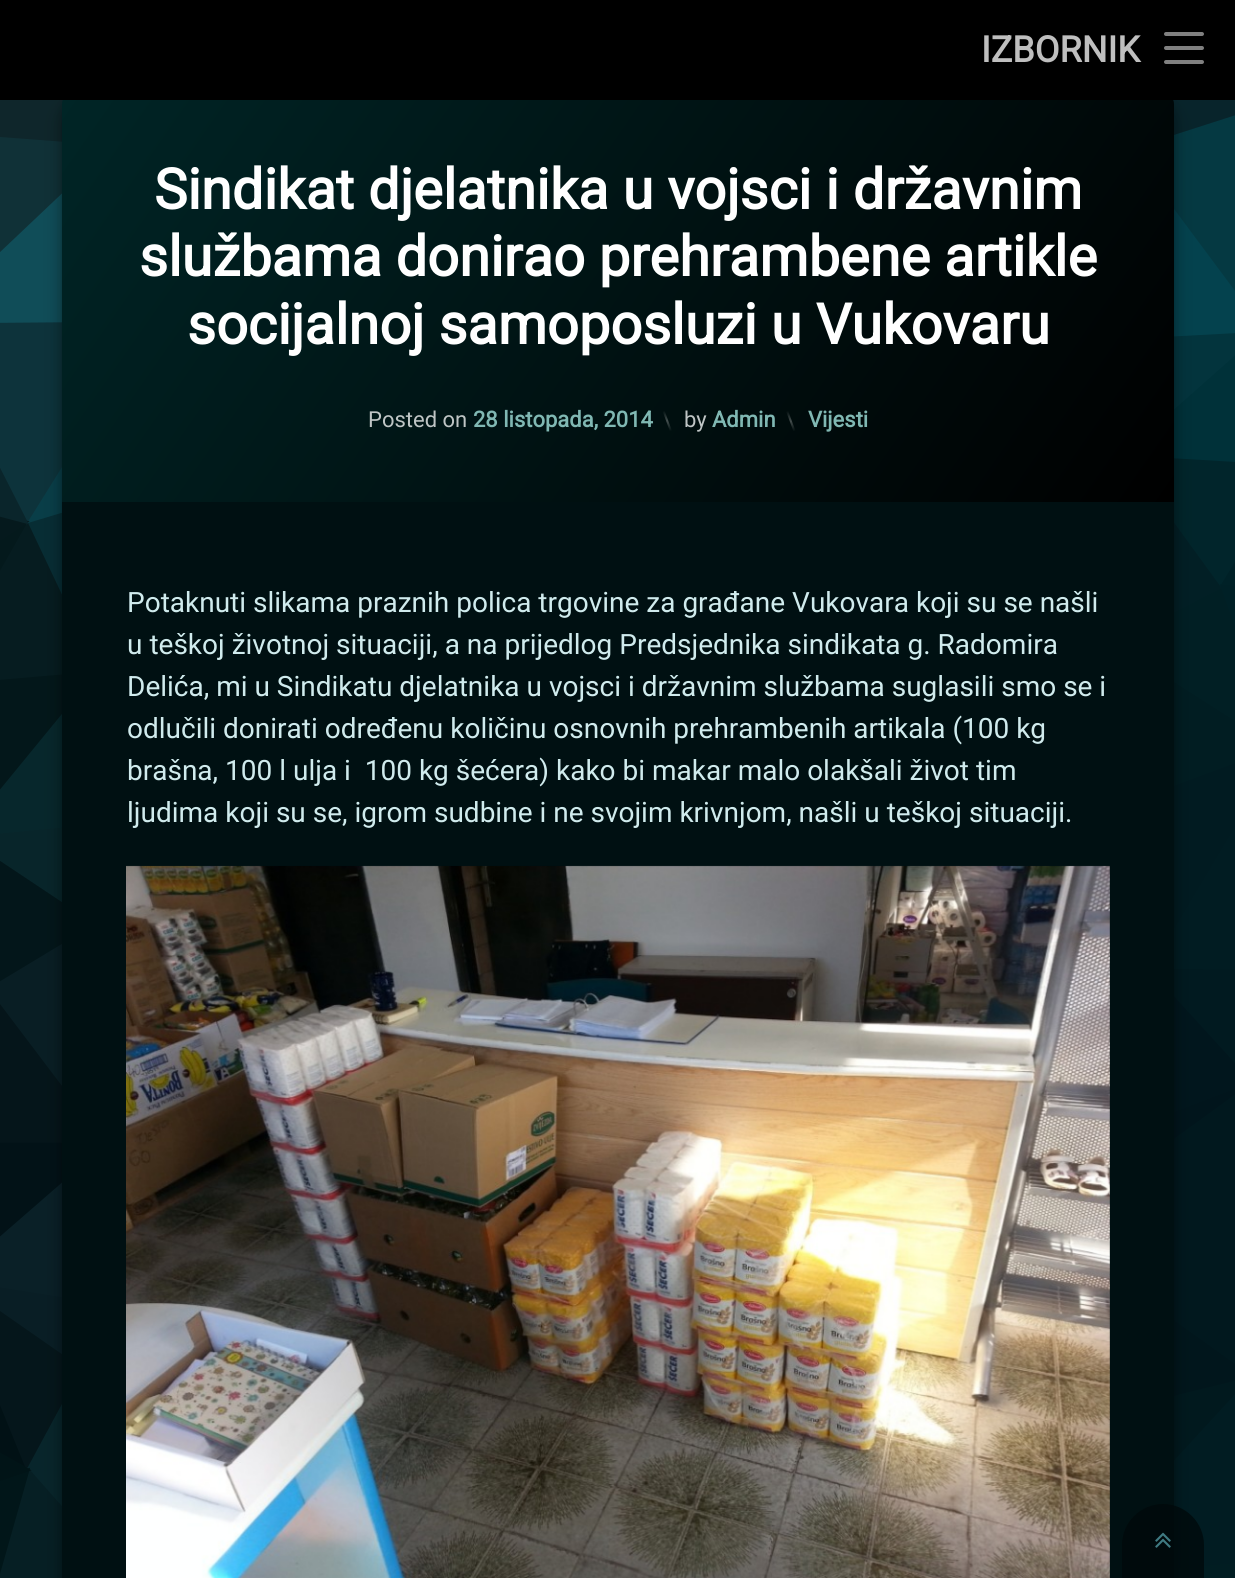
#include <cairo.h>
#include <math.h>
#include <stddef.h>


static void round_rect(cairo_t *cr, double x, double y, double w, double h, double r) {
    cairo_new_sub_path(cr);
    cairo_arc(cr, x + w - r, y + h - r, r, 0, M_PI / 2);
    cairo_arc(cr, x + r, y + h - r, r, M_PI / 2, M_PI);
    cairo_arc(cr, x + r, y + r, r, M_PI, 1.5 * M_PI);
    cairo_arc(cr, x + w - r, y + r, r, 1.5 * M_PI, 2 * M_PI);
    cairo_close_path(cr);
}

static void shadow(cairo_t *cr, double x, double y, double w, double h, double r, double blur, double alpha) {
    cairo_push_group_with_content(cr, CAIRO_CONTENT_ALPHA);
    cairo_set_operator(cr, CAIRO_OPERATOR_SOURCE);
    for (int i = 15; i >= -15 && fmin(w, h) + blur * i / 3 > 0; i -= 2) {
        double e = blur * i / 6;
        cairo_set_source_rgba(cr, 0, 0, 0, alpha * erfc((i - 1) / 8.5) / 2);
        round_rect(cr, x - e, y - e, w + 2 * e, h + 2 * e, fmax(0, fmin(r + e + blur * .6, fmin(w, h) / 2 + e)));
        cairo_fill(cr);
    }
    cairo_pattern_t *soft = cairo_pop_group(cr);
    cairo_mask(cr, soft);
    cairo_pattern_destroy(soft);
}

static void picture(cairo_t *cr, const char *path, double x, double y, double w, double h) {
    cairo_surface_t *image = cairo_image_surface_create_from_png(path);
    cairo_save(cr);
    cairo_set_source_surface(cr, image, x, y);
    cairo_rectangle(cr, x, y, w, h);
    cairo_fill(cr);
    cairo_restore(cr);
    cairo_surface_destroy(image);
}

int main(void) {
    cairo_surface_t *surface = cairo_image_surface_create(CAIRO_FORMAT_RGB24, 1235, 1578);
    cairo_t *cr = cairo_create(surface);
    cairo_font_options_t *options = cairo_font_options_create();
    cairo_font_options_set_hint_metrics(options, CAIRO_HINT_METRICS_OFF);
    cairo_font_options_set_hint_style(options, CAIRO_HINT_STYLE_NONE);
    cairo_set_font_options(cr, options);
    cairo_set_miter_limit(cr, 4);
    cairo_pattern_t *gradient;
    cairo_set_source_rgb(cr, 1, 1, 1);
    cairo_paint(cr);
    picture(cr, "img2.png", 0, 100, 1235, 1478);
    cairo_set_source_rgb(cr, 0, 0, 0);
    shadow(cr, 62, 94, 1112, 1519, 20, 5, 0.25);
    shadow(cr, 62, 104, 1112, 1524, 20, 10, 0.25);
    cairo_set_source_rgb(cr, 0, 0.063, 0.071);
    cairo_new_path(cr);
    cairo_move_to(cr, 82, 94);
    cairo_line_to(cr, 1154, 94);
    cairo_curve_to(cr, 1165, 94, 1174, 103, 1174, 114);
    cairo_line_to(cr, 1174, 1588);
    cairo_curve_to(cr, 1174, 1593.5, 1169.5, 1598, 1164, 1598);
    cairo_line_to(cr, 72, 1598);
    cairo_curve_to(cr, 66.5, 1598, 62, 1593.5, 62, 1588);
    cairo_line_to(cr, 62, 114);
    cairo_curve_to(cr, 62, 103, 71, 94, 82, 94);
    cairo_close_path(cr);
    cairo_fill(cr);
    gradient = cairo_pattern_create_linear(149, -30, 1087, 626);
    cairo_pattern_add_color_stop_rgba(gradient, 0, 0, 0.145, 0.149, 1);
    cairo_pattern_add_color_stop_rgba(gradient, 1, 0, 0, 0, 1);
    cairo_set_source(cr, gradient);
    cairo_pattern_destroy(gradient);
    cairo_new_path(cr);
    cairo_move_to(cr, 72, 94);
    cairo_line_to(cr, 1164, 94);
    cairo_curve_to(cr, 1169.5, 94, 1174, 98.5, 1174, 104);
    cairo_line_to(cr, 1174, 502);
    cairo_line_to(cr, 62, 502);
    cairo_line_to(cr, 62, 104);
    cairo_curve_to(cr, 62, 98.5, 66.5, 94, 72, 94);
    cairo_close_path(cr);
    cairo_fill(cr);
    cairo_set_source_rgb(cr, 0, 0, 0);
    cairo_rectangle(cr, 0, 0, 1235, 100);
    cairo_fill(cr);
    cairo_select_font_face(cr, "Roboto", CAIRO_FONT_SLANT_NORMAL, CAIRO_FONT_WEIGHT_BOLD);
    cairo_set_font_size(cr, 36);
    cairo_set_source_rgb(cr, 0.749, 0.749, 0.749);
    cairo_move_to(cr, 981, 62);
    cairo_show_text(cr, "IZBORNIK");
    cairo_set_source_rgb(cr, 0.502, 0.502, 0.502);
    round_rect(cr, 1164, 32, 40, 4, 2);
    cairo_fill(cr);
    round_rect(cr, 1164, 46, 40, 4, 2);
    cairo_fill(cr);
    round_rect(cr, 1164, 60, 40, 4, 2);
    cairo_fill(cr);
    cairo_set_font_size(cr, 56);
    cairo_set_source_rgb(cr, 1, 1, 1);
    cairo_move_to(cr, 154, 209);
    cairo_show_text(cr, "Sindikat djelatnika u vojsci i državnim");
    cairo_move_to(cr, 139, 276);
    cairo_show_text(cr, "službama donirao prehrambene artikle");
    cairo_move_to(cr, 187, 344);
    cairo_show_text(cr, "socijalnoj samoposluzi u Vukovaru");
    cairo_select_font_face(cr, "Roboto", CAIRO_FONT_SLANT_NORMAL, CAIRO_FONT_WEIGHT_NORMAL);
    cairo_set_font_size(cr, 22);
    cairo_set_source_rgb(cr, 0.749, 0.773, 0.773);
    cairo_move_to(cr, 368, 427);
    cairo_show_text(cr, "Posted on");
    cairo_select_font_face(cr, "Roboto", CAIRO_FONT_SLANT_NORMAL, CAIRO_FONT_WEIGHT_BOLD);
    cairo_set_source_rgb(cr, 0.502, 0.722, 0.702);
    cairo_move_to(cr, 473, 427);
    cairo_show_text(cr, "28 listopada, 2014");
    gradient = cairo_pattern_create_linear(663, 411, 671, 431);
    cairo_pattern_add_color_stop_rgba(gradient, 0, 0, 0.059, 0.059, 1);
    cairo_pattern_add_color_stop_rgba(gradient, 0.5, 0.271, 0.314, 0.314, 1);
    cairo_pattern_add_color_stop_rgba(gradient, 1, 0, 0.059, 0.059, 1);
    cairo_set_source(cr, gradient);
    cairo_pattern_destroy(gradient);
    cairo_new_path(cr);
    cairo_move_to(cr, 662.5, 411);
    cairo_line_to(cr, 664.5, 410.5);
    cairo_line_to(cr, 672, 431);
    cairo_line_to(cr, 670, 431.5);
    cairo_close_path(cr);
    cairo_fill(cr);
    cairo_select_font_face(cr, "Roboto", CAIRO_FONT_SLANT_NORMAL, CAIRO_FONT_WEIGHT_NORMAL);
    cairo_set_source_rgb(cr, 0.749, 0.773, 0.773);
    cairo_move_to(cr, 684, 427);
    cairo_show_text(cr, "by");
    cairo_select_font_face(cr, "Roboto", CAIRO_FONT_SLANT_NORMAL, CAIRO_FONT_WEIGHT_BOLD);
    cairo_set_source_rgb(cr, 0.502, 0.722, 0.702);
    cairo_move_to(cr, 712, 427);
    cairo_show_text(cr, "Admin");
    gradient = cairo_pattern_create_linear(787, 411, 795, 431);
    cairo_pattern_add_color_stop_rgba(gradient, 0, 0, 0.047, 0.047, 1);
    cairo_pattern_add_color_stop_rgba(gradient, 0.5, 0.271, 0.306, 0.306, 1);
    cairo_pattern_add_color_stop_rgba(gradient, 1, 0, 0.047, 0.047, 1);
    cairo_set_source(cr, gradient);
    cairo_pattern_destroy(gradient);
    cairo_new_path(cr);
    cairo_move_to(cr, 786, 411);
    cairo_line_to(cr, 788, 410.5);
    cairo_line_to(cr, 795.5, 431);
    cairo_line_to(cr, 793.5, 431.5);
    cairo_close_path(cr);
    cairo_fill(cr);
    cairo_set_source_rgb(cr, 0.502, 0.722, 0.702);
    cairo_move_to(cr, 808, 427);
    cairo_show_text(cr, "Vijesti");
    cairo_select_font_face(cr, "Roboto", CAIRO_FONT_SLANT_NORMAL, CAIRO_FONT_WEIGHT_NORMAL);
    cairo_set_font_size(cr, 28);
    cairo_set_source_rgb(cr, 0.816, 0.918, 0.929);
    cairo_move_to(cr, 127, 612);
    cairo_show_text(cr, "Potaknuti slikama praznih polica trgovine za građane Vukovara koji su se našli");
    cairo_move_to(cr, 127, 654);
    cairo_show_text(cr, "u teškoj životnoj situaciji, a na prijedlog Predsjednika sindikata g. Radomira");
    cairo_move_to(cr, 127, 696);
    cairo_show_text(cr, "Delića, mi u Sindikatu djelatnika u vojsci i državnim službama suglasili smo se i");
    cairo_move_to(cr, 127, 738);
    cairo_show_text(cr, "odlučili donirati određenu količinu osnovnih prehrambenih artikala (100 kg");
    cairo_move_to(cr, 127, 780);
    cairo_show_text(cr, "brašna, 100 l ulja i  100 kg šećera) kako bi makar malo olakšali život tim");
    cairo_move_to(cr, 127, 822);
    cairo_show_text(cr, "ljudima koji su se, igrom sudbine i ne svojim krivnjom, našli u teškoj situaciji.");
    picture(cr, "img1.png", 126, 865, 984, 713);
    cairo_set_source_rgba(cr, 0, 0.035, 0.039, 0.75);
    cairo_new_path(cr);
    cairo_move_to(cr, 1163, 1504);
    cairo_curve_to(cr, 1185.5, 1504, 1204, 1522.5, 1204, 1545);
    cairo_line_to(cr, 1204, 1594);
    cairo_line_to(cr, 1122, 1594);
    cairo_line_to(cr, 1122, 1545);
    cairo_curve_to(cr, 1122, 1522.5, 1140.5, 1504, 1163, 1504);
    cairo_close_path(cr);
    cairo_fill(cr);
    picture(cr, "img3.png", 1155, 1532, 16, 16);
    cairo_surface_write_to_png(surface, "page.png");
    cairo_font_options_destroy(options);
    cairo_destroy(cr);
    cairo_surface_destroy(surface);
    return 0;
}
